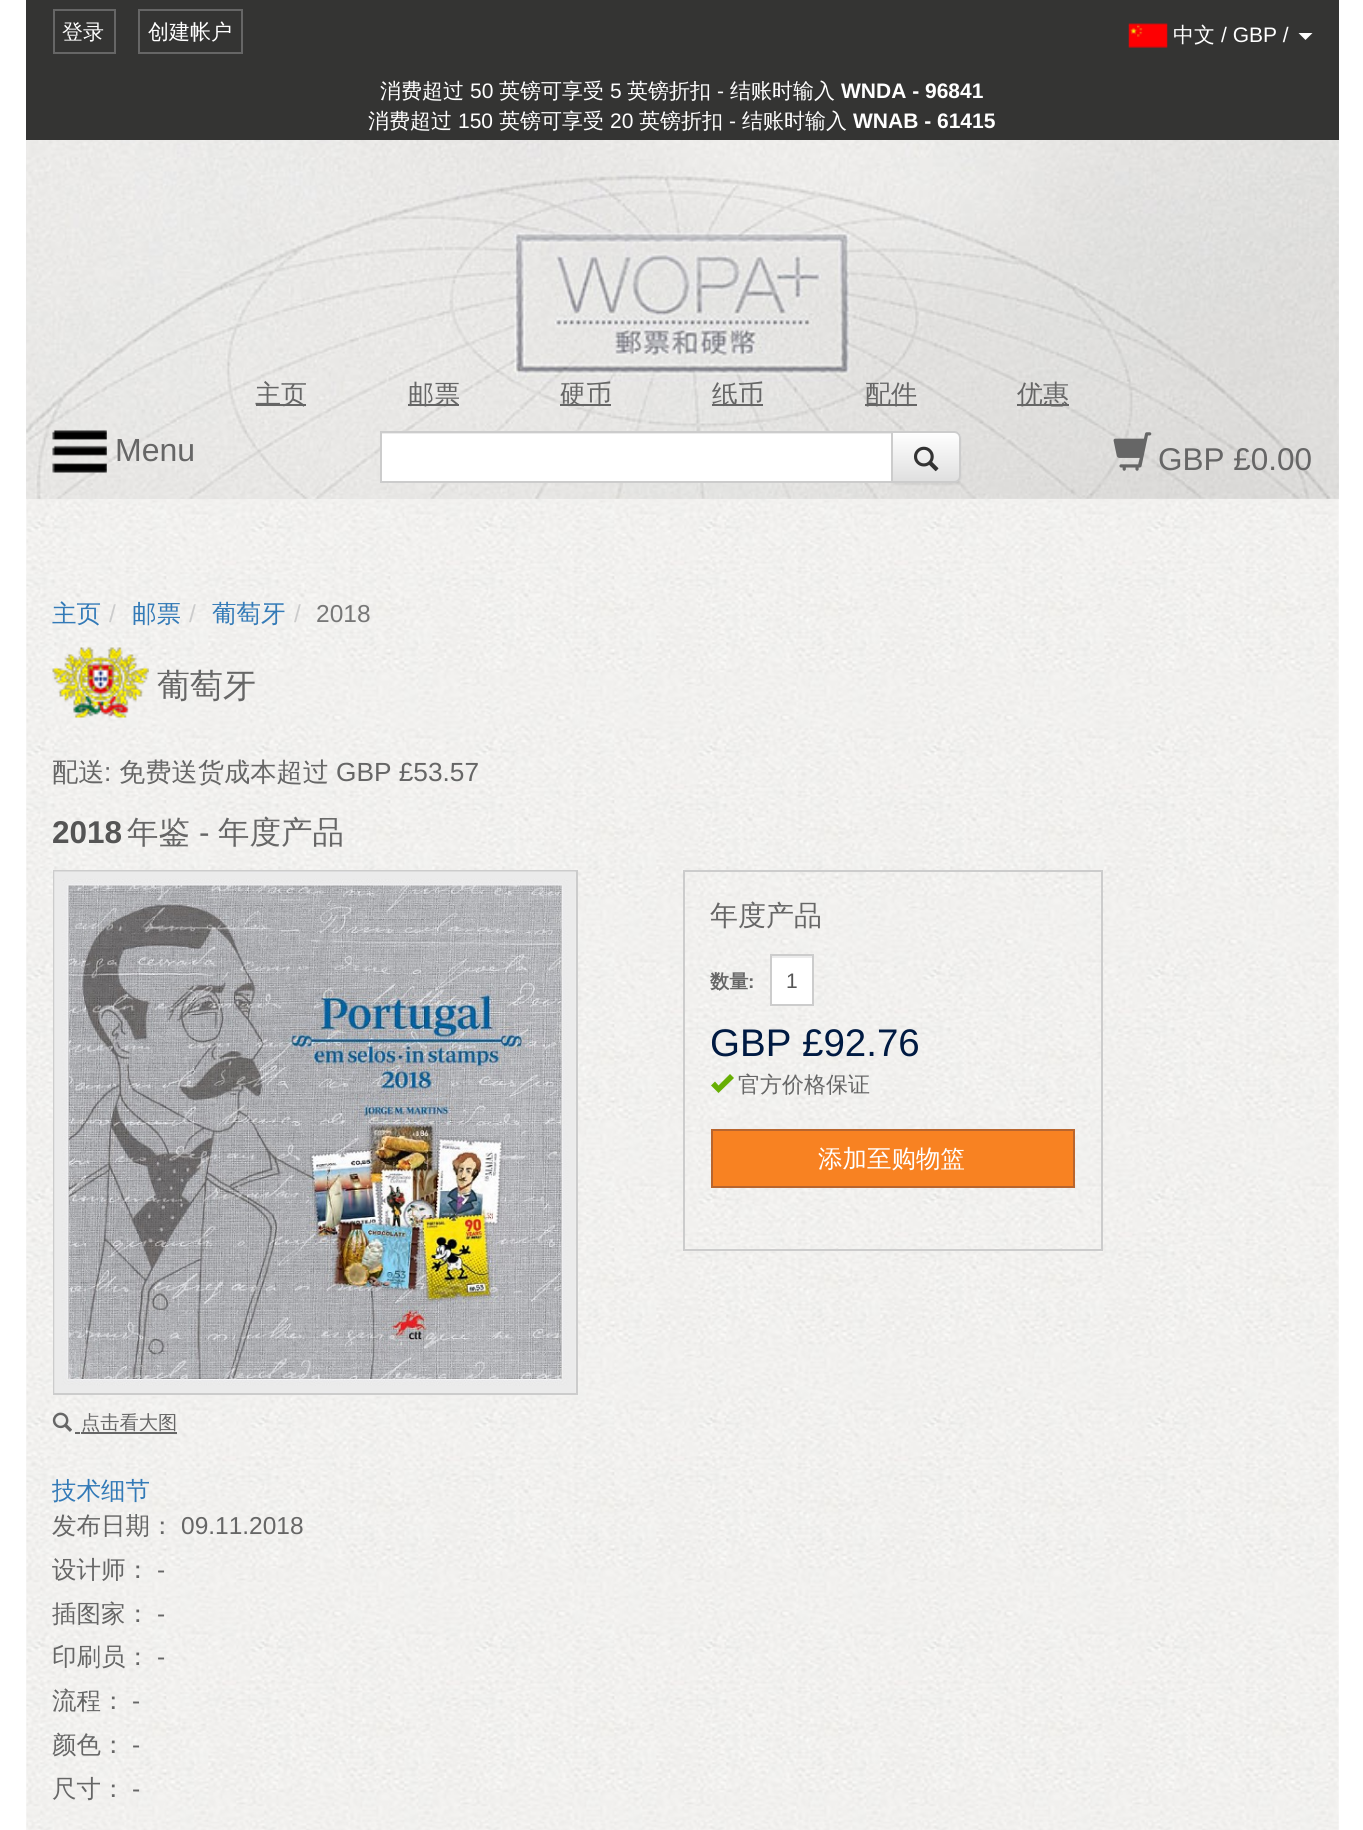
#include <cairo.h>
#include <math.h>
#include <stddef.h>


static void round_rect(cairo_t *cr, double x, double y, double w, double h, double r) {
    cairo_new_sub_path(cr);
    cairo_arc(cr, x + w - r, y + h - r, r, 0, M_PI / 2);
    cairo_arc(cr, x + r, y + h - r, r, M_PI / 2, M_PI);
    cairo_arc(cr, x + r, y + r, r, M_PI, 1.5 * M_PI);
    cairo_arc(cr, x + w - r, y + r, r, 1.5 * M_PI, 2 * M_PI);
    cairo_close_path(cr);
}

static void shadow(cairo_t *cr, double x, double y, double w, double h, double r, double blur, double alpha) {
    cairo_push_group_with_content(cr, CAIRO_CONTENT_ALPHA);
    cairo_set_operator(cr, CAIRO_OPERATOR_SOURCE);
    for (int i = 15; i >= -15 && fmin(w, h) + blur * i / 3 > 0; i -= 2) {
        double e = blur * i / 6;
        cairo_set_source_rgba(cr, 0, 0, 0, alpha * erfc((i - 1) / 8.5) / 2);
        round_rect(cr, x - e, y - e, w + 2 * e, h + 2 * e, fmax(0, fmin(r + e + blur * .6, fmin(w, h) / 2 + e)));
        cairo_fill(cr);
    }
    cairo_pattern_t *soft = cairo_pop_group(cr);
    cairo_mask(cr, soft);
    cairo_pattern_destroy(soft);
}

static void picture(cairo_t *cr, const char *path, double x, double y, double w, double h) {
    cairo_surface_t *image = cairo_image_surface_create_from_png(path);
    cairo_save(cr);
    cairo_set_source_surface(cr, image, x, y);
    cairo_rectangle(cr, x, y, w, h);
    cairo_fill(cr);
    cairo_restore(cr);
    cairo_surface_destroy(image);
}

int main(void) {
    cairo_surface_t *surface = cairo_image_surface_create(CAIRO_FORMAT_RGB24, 1363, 1830);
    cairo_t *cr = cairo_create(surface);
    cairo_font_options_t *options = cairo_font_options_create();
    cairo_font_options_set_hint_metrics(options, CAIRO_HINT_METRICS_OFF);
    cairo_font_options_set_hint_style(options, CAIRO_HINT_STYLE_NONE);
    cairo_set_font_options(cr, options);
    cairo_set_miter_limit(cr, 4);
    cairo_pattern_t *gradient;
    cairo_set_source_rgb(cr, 1, 1, 1);
    cairo_paint(cr);
    picture(cr, "img1.png", 26, 499, 1313, 1331);
    cairo_set_source_rgb(cr, 0.204, 0.204, 0.2);
    cairo_rectangle(cr, 26, 0, 1313, 140);
    cairo_fill(cr);
    cairo_rectangle(cr, 54, 10, 61, 43);
    cairo_set_source_rgb(cr, 0.4, 0.4, 0.4);
    cairo_stroke(cr);
    cairo_select_font_face(cr, "WenQuanYi Zen Hei Medium", CAIRO_FONT_SLANT_NORMAL, CAIRO_FONT_WEIGHT_NORMAL);
    cairo_set_font_size(cr, 21);
    cairo_set_source_rgb(cr, 1, 1, 1);
    cairo_move_to(cr, 62, 39);
    cairo_show_text(cr, "登录");
    cairo_rectangle(cr, 139, 10, 103, 43);
    cairo_set_source_rgb(cr, 0.4, 0.4, 0.4);
    cairo_stroke(cr);
    cairo_set_source_rgb(cr, 1, 1, 1);
    cairo_move_to(cr, 148, 39);
    cairo_show_text(cr, "创建帐户");
    picture(cr, "img2.png", 1128, 23, 40, 25);
    cairo_move_to(cr, 1173, 42);
    cairo_show_text(cr, "中文");
    cairo_select_font_face(cr, "Liberation Sans", CAIRO_FONT_SLANT_NORMAL, CAIRO_FONT_WEIGHT_NORMAL);
    cairo_move_to(cr, 1221, 42);
    cairo_show_text(cr, "/ GBP /");
    cairo_new_path(cr);
    cairo_move_to(cr, 1298.5, 33);
    cairo_line_to(cr, 1312.5, 33);
    cairo_line_to(cr, 1305.5, 40);
    cairo_close_path(cr);
    cairo_fill(cr);
    cairo_select_font_face(cr, "WenQuanYi Zen Hei Medium", CAIRO_FONT_SLANT_NORMAL, CAIRO_FONT_WEIGHT_NORMAL);
    cairo_move_to(cr, 380, 98);
    cairo_show_text(cr, "消费超过");
    cairo_select_font_face(cr, "Liberation Sans", CAIRO_FONT_SLANT_NORMAL, CAIRO_FONT_WEIGHT_NORMAL);
    cairo_move_to(cr, 470, 98);
    cairo_show_text(cr, "50");
    cairo_select_font_face(cr, "WenQuanYi Zen Hei Medium", CAIRO_FONT_SLANT_NORMAL, CAIRO_FONT_WEIGHT_NORMAL);
    cairo_move_to(cr, 499, 98);
    cairo_show_text(cr, "英镑可享受");
    cairo_select_font_face(cr, "Liberation Sans", CAIRO_FONT_SLANT_NORMAL, CAIRO_FONT_WEIGHT_NORMAL);
    cairo_move_to(cr, 610, 98);
    cairo_show_text(cr, "5");
    cairo_select_font_face(cr, "WenQuanYi Zen Hei Medium", CAIRO_FONT_SLANT_NORMAL, CAIRO_FONT_WEIGHT_NORMAL);
    cairo_move_to(cr, 627, 98);
    cairo_show_text(cr, "英镑折扣");
    cairo_select_font_face(cr, "Liberation Sans", CAIRO_FONT_SLANT_NORMAL, CAIRO_FONT_WEIGHT_NORMAL);
    cairo_move_to(cr, 717, 98);
    cairo_show_text(cr, "-");
    cairo_select_font_face(cr, "WenQuanYi Zen Hei Medium", CAIRO_FONT_SLANT_NORMAL, CAIRO_FONT_WEIGHT_NORMAL);
    cairo_move_to(cr, 730, 98);
    cairo_show_text(cr, "结账时输入");
    cairo_select_font_face(cr, "Liberation Sans", CAIRO_FONT_SLANT_NORMAL, CAIRO_FONT_WEIGHT_BOLD);
    cairo_move_to(cr, 841, 98);
    cairo_show_text(cr, "WNDA - 96841");
    cairo_select_font_face(cr, "WenQuanYi Zen Hei Medium", CAIRO_FONT_SLANT_NORMAL, CAIRO_FONT_WEIGHT_NORMAL);
    cairo_move_to(cr, 368, 128);
    cairo_show_text(cr, "消费超过");
    cairo_select_font_face(cr, "Liberation Sans", CAIRO_FONT_SLANT_NORMAL, CAIRO_FONT_WEIGHT_NORMAL);
    cairo_move_to(cr, 458, 128);
    cairo_show_text(cr, "150");
    cairo_select_font_face(cr, "WenQuanYi Zen Hei Medium", CAIRO_FONT_SLANT_NORMAL, CAIRO_FONT_WEIGHT_NORMAL);
    cairo_move_to(cr, 499, 128);
    cairo_show_text(cr, "英镑可享受");
    cairo_select_font_face(cr, "Liberation Sans", CAIRO_FONT_SLANT_NORMAL, CAIRO_FONT_WEIGHT_NORMAL);
    cairo_move_to(cr, 610, 128);
    cairo_show_text(cr, "20");
    cairo_select_font_face(cr, "WenQuanYi Zen Hei Medium", CAIRO_FONT_SLANT_NORMAL, CAIRO_FONT_WEIGHT_NORMAL);
    cairo_move_to(cr, 639, 128);
    cairo_show_text(cr, "英镑折扣");
    cairo_select_font_face(cr, "Liberation Sans", CAIRO_FONT_SLANT_NORMAL, CAIRO_FONT_WEIGHT_NORMAL);
    cairo_move_to(cr, 729, 128);
    cairo_show_text(cr, "-");
    cairo_select_font_face(cr, "WenQuanYi Zen Hei Medium", CAIRO_FONT_SLANT_NORMAL, CAIRO_FONT_WEIGHT_NORMAL);
    cairo_move_to(cr, 742, 128);
    cairo_show_text(cr, "结账时输入");
    cairo_select_font_face(cr, "Liberation Sans", CAIRO_FONT_SLANT_NORMAL, CAIRO_FONT_WEIGHT_BOLD);
    cairo_move_to(cr, 853, 128);
    cairo_show_text(cr, "WNAB - 61415");
    cairo_set_source_rgb(cr, 0.906, 0.902, 0.898);
    cairo_rectangle(cr, 26, 140, 1313, 359);
    cairo_fill(cr);
    picture(cr, "img3.png", 26, 140, 1313, 359);
    cairo_set_source_rgb(cr, 0.4, 0.4, 0.4);
    cairo_rectangle(cr, 256, 404, 50, 2);
    cairo_fill(cr);
    cairo_select_font_face(cr, "WenQuanYi Zen Hei Medium", CAIRO_FONT_SLANT_NORMAL, CAIRO_FONT_WEIGHT_NORMAL);
    cairo_set_font_size(cr, 26);
    cairo_move_to(cr, 255, 403);
    cairo_show_text(cr, "主页");
    cairo_rectangle(cr, 408, 404, 51, 2);
    cairo_fill(cr);
    cairo_move_to(cr, 408, 403);
    cairo_show_text(cr, "邮票");
    cairo_rectangle(cr, 560, 404, 51, 2);
    cairo_fill(cr);
    cairo_move_to(cr, 560, 403);
    cairo_show_text(cr, "硬币");
    cairo_rectangle(cr, 712, 404, 51, 2);
    cairo_fill(cr);
    cairo_move_to(cr, 712, 403);
    cairo_show_text(cr, "纸币");
    cairo_rectangle(cr, 865, 404, 52, 2);
    cairo_fill(cr);
    cairo_move_to(cr, 865, 403);
    cairo_show_text(cr, "配件");
    cairo_rectangle(cr, 1017, 404, 52, 2);
    cairo_fill(cr);
    cairo_move_to(cr, 1017, 403);
    cairo_show_text(cr, "优惠");
    picture(cr, "img4.png", 52, 430, 55, 43);
    cairo_select_font_face(cr, "Liberation Sans", CAIRO_FONT_SLANT_NORMAL, CAIRO_FONT_WEIGHT_NORMAL);
    cairo_set_font_size(cr, 32);
    cairo_move_to(cr, 115, 461);
    cairo_show_text(cr, "Menu");
    cairo_set_source_rgb(cr, 0, 0, 0);
    shadow(cr, 891, 432, 70, 53, 7, 1, 0.07);
    cairo_set_source_rgb(cr, 1, 1, 1);
    cairo_rectangle(cr, 382, 434, 509, 47);
    cairo_fill(cr);
    cairo_set_source_rgb(cr, 0.925, 0.925, 0.925);
    cairo_rectangle(cr, 382, 433, 509, 1);
    cairo_fill(cr);
    cairo_save(cr);
    cairo_new_path(cr);
    cairo_move_to(cr, 891, 431);
    cairo_line_to(cr, 954, 431);
    cairo_curve_to(cr, 958, 431, 961, 434, 961, 438);
    cairo_line_to(cr, 961, 476);
    cairo_curve_to(cr, 961, 480, 958, 483, 954, 483);
    cairo_line_to(cr, 891, 483);
    cairo_close_path(cr);
    cairo_clip(cr);
    gradient = cairo_pattern_create_linear(926, 432, 926, 481);
    cairo_pattern_add_color_stop_rgba(gradient, 0, 1, 1, 1, 1);
    cairo_pattern_add_color_stop_rgba(gradient, 1, 0.878, 0.878, 0.878, 1);
    cairo_set_source(cr, gradient);
    cairo_pattern_destroy(gradient);
    cairo_rectangle(cr, 893, 432, 68, 49);
    cairo_fill(cr);
    cairo_restore(cr);
    cairo_new_path(cr);
    cairo_move_to(cr, 892, 432);
    cairo_line_to(cr, 954, 432);
    cairo_curve_to(cr, 957.5, 432, 960, 434.5, 960, 438);
    cairo_line_to(cr, 960, 476);
    cairo_curve_to(cr, 960, 479.5, 957.5, 482, 954, 482);
    cairo_line_to(cr, 892, 482);
    cairo_close_path(cr);
    cairo_set_source_rgb(cr, 0.8, 0.8, 0.8);
    cairo_stroke(cr);
    cairo_rectangle(cr, 381, 432, 511, 50);
    cairo_stroke(cr);
    picture(cr, "img5.png", 914, 446, 25, 26);
    picture(cr, "img6.png", 1113, 432, 39, 39);
    cairo_set_font_size(cr, 31.5);
    cairo_set_source_rgb(cr, 0.4, 0.4, 0.4);
    cairo_move_to(cr, 1158, 470);
    cairo_show_text(cr, "GBP £0.00");
    cairo_select_font_face(cr, "WenQuanYi Zen Hei Medium", CAIRO_FONT_SLANT_NORMAL, CAIRO_FONT_WEIGHT_NORMAL);
    cairo_set_font_size(cr, 24.5);
    cairo_set_source_rgb(cr, 0.2, 0.478, 0.718);
    cairo_move_to(cr, 52, 622);
    cairo_show_text(cr, "主页");
    cairo_select_font_face(cr, "Liberation Sans", CAIRO_FONT_SLANT_NORMAL, CAIRO_FONT_WEIGHT_NORMAL);
    cairo_set_source_rgb(cr, 0.8, 0.8, 0.8);
    cairo_move_to(cr, 109, 622);
    cairo_show_text(cr, "/");
    cairo_select_font_face(cr, "WenQuanYi Zen Hei Medium", CAIRO_FONT_SLANT_NORMAL, CAIRO_FONT_WEIGHT_NORMAL);
    cairo_set_source_rgb(cr, 0.2, 0.478, 0.718);
    cairo_move_to(cr, 132, 622);
    cairo_show_text(cr, "邮票");
    cairo_select_font_face(cr, "Liberation Sans", CAIRO_FONT_SLANT_NORMAL, CAIRO_FONT_WEIGHT_NORMAL);
    cairo_set_source_rgb(cr, 0.8, 0.8, 0.8);
    cairo_move_to(cr, 189, 622);
    cairo_show_text(cr, "/");
    cairo_select_font_face(cr, "WenQuanYi Zen Hei Medium", CAIRO_FONT_SLANT_NORMAL, CAIRO_FONT_WEIGHT_NORMAL);
    cairo_set_source_rgb(cr, 0.2, 0.478, 0.718);
    cairo_move_to(cr, 212, 622);
    cairo_show_text(cr, "葡萄牙");
    cairo_select_font_face(cr, "Liberation Sans", CAIRO_FONT_SLANT_NORMAL, CAIRO_FONT_WEIGHT_NORMAL);
    cairo_set_source_rgb(cr, 0.8, 0.8, 0.8);
    cairo_move_to(cr, 294, 622);
    cairo_show_text(cr, "/");
    cairo_set_source_rgb(cr, 0.467, 0.467, 0.467);
    cairo_move_to(cr, 316, 622);
    cairo_show_text(cr, "2018");
    picture(cr, "img7.png", 52, 647, 97, 71);
    cairo_select_font_face(cr, "WenQuanYi Zen Hei Medium", CAIRO_FONT_SLANT_NORMAL, CAIRO_FONT_WEIGHT_NORMAL);
    cairo_set_font_size(cr, 33);
    cairo_set_source_rgb(cr, 0.4, 0.4, 0.4);
    cairo_move_to(cr, 157, 697);
    cairo_show_text(cr, "葡萄牙");
    cairo_set_font_size(cr, 26.25);
    cairo_move_to(cr, 52, 781);
    cairo_show_text(cr, "配送");
    cairo_select_font_face(cr, "Liberation Sans", CAIRO_FONT_SLANT_NORMAL, CAIRO_FONT_WEIGHT_NORMAL);
    cairo_move_to(cr, 104, 781);
    cairo_show_text(cr, ":");
    cairo_select_font_face(cr, "WenQuanYi Zen Hei Medium", CAIRO_FONT_SLANT_NORMAL, CAIRO_FONT_WEIGHT_NORMAL);
    cairo_move_to(cr, 119, 781);
    cairo_show_text(cr, "免费送货成本超过");
    cairo_select_font_face(cr, "Liberation Sans", CAIRO_FONT_SLANT_NORMAL, CAIRO_FONT_WEIGHT_NORMAL);
    cairo_move_to(cr, 336, 781);
    cairo_show_text(cr, "GBP £53.57");
    cairo_select_font_face(cr, "Liberation Sans", CAIRO_FONT_SLANT_NORMAL, CAIRO_FONT_WEIGHT_BOLD);
    cairo_set_font_size(cr, 31.5);
    cairo_set_source_rgb(cr, 0.333, 0.333, 0.333);
    cairo_move_to(cr, 52, 843);
    cairo_show_text(cr, "2018");
    cairo_select_font_face(cr, "WenQuanYi Zen Hei Medium", CAIRO_FONT_SLANT_NORMAL, CAIRO_FONT_WEIGHT_NORMAL);
    cairo_set_source_rgb(cr, 0.4, 0.4, 0.4);
    cairo_move_to(cr, 127, 843);
    cairo_show_text(cr, "年鉴");
    cairo_select_font_face(cr, "Liberation Sans", CAIRO_FONT_SLANT_NORMAL, CAIRO_FONT_WEIGHT_NORMAL);
    cairo_move_to(cr, 199, 843);
    cairo_show_text(cr, "-");
    cairo_select_font_face(cr, "WenQuanYi Zen Hei Medium", CAIRO_FONT_SLANT_NORMAL, CAIRO_FONT_WEIGHT_NORMAL);
    cairo_move_to(cr, 218, 843);
    cairo_show_text(cr, "年度产品");
    cairo_rectangle(cr, 684, 871, 418, 379);
    cairo_set_source_rgb(cr, 0.8, 0.8, 0.8);
    cairo_stroke(cr);
    cairo_set_font_size(cr, 28);
    cairo_set_source_rgb(cr, 0.4, 0.4, 0.4);
    cairo_move_to(cr, 710, 925);
    cairo_show_text(cr, "年度产品");
    cairo_select_font_face(cr, "WenQuanYi Zen Hei", CAIRO_FONT_SLANT_NORMAL, CAIRO_FONT_WEIGHT_BOLD);
    cairo_set_font_size(cr, 19.25);
    cairo_move_to(cr, 710, 988);
    cairo_show_text(cr, "数量");
    cairo_select_font_face(cr, "Liberation Sans", CAIRO_FONT_SLANT_NORMAL, CAIRO_FONT_WEIGHT_BOLD);
    cairo_move_to(cr, 748, 988);
    cairo_show_text(cr, ":");
    cairo_set_source_rgb(cr, 1, 1, 1);
    cairo_rectangle(cr, 772, 958, 40, 46);
    cairo_fill(cr);
    cairo_set_source_rgb(cr, 0.925, 0.925, 0.925);
    cairo_rectangle(cr, 772, 956, 40, 2);
    cairo_fill(cr);
    cairo_rectangle(cr, 771, 955, 42, 50);
    cairo_set_source_rgb(cr, 0.8, 0.8, 0.8);
    cairo_stroke(cr);
    cairo_select_font_face(cr, "Liberation Sans", CAIRO_FONT_SLANT_NORMAL, CAIRO_FONT_WEIGHT_NORMAL);
    cairo_set_font_size(cr, 21);
    cairo_set_source_rgb(cr, 0.333, 0.333, 0.333);
    cairo_move_to(cr, 786, 988);
    cairo_show_text(cr, "1");
    cairo_set_font_size(cr, 38.5);
    cairo_set_source_rgb(cr, 0, 0.102, 0.259);
    cairo_move_to(cr, 710, 1056);
    cairo_show_text(cr, "GBP £92.76");
    cairo_set_source_rgb(cr, 0.404, 0.686, 0.012);
    cairo_new_path(cr);
    cairo_move_to(cr, 711, 1085.5);
    cairo_line_to(cr, 718.5, 1093);
    cairo_line_to(cr, 734, 1078);
    cairo_line_to(cr, 730, 1074);
    cairo_line_to(cr, 718.5, 1085.5);
    cairo_line_to(cr, 715, 1081.5);
    cairo_close_path(cr);
    cairo_fill(cr);
    cairo_select_font_face(cr, "WenQuanYi Zen Hei Medium", CAIRO_FONT_SLANT_NORMAL, CAIRO_FONT_WEIGHT_NORMAL);
    cairo_set_font_size(cr, 22);
    cairo_set_source_rgb(cr, 0.4, 0.4, 0.4);
    cairo_move_to(cr, 738, 1092);
    cairo_show_text(cr, "官方价格保证");
    cairo_set_source_rgb(cr, 0.969, 0.51, 0.133);
    cairo_rectangle(cr, 712, 1130, 362, 57);
    cairo_fill_preserve(cr);
    cairo_set_source_rgb(cr, 0.725, 0.396, 0.18);
    cairo_stroke(cr);
    cairo_set_font_size(cr, 24.5);
    cairo_set_source_rgb(cr, 1, 1, 1);
    cairo_move_to(cr, 818, 1167);
    cairo_show_text(cr, "添加至购物篮");
    cairo_rectangle(cr, 54, 871, 523, 523);
    cairo_set_source_rgb(cr, 0.8, 0.8, 0.8);
    cairo_stroke(cr);
    picture(cr, "img8.png", 54, 871, 522, 522);
    picture(cr, "img9.png", 52, 1412, 20, 20);
    cairo_set_source_rgb(cr, 0.4, 0.4, 0.4);
    cairo_rectangle(cr, 75, 1432, 5, 2);
    cairo_fill(cr);
    cairo_rectangle(cr, 81, 1432, 96, 2);
    cairo_fill(cr);
    cairo_set_font_size(cr, 19.25);
    cairo_move_to(cr, 81, 1429);
    cairo_show_text(cr, "点击看大图");
    cairo_set_font_size(cr, 24.5);
    cairo_set_source_rgb(cr, 0.2, 0.478, 0.718);
    cairo_move_to(cr, 52, 1499);
    cairo_show_text(cr, "技术细节");
    cairo_set_source_rgb(cr, 0.4, 0.4, 0.4);
    cairo_move_to(cr, 52, 1534);
    cairo_show_text(cr, "发布日期：");
    cairo_select_font_face(cr, "Liberation Sans", CAIRO_FONT_SLANT_NORMAL, CAIRO_FONT_WEIGHT_NORMAL);
    cairo_move_to(cr, 181, 1534);
    cairo_show_text(cr, "09.11.2018");
    cairo_select_font_face(cr, "WenQuanYi Zen Hei Medium", CAIRO_FONT_SLANT_NORMAL, CAIRO_FONT_WEIGHT_NORMAL);
    cairo_move_to(cr, 52, 1578);
    cairo_show_text(cr, "设计师：");
    cairo_select_font_face(cr, "Liberation Sans", CAIRO_FONT_SLANT_NORMAL, CAIRO_FONT_WEIGHT_NORMAL);
    cairo_move_to(cr, 157, 1578);
    cairo_show_text(cr, "-");
    cairo_select_font_face(cr, "WenQuanYi Zen Hei Medium", CAIRO_FONT_SLANT_NORMAL, CAIRO_FONT_WEIGHT_NORMAL);
    cairo_move_to(cr, 52, 1622);
    cairo_show_text(cr, "插图家：");
    cairo_select_font_face(cr, "Liberation Sans", CAIRO_FONT_SLANT_NORMAL, CAIRO_FONT_WEIGHT_NORMAL);
    cairo_move_to(cr, 157, 1622);
    cairo_show_text(cr, "-");
    cairo_select_font_face(cr, "WenQuanYi Zen Hei Medium", CAIRO_FONT_SLANT_NORMAL, CAIRO_FONT_WEIGHT_NORMAL);
    cairo_move_to(cr, 52, 1665);
    cairo_show_text(cr, "印刷员：");
    cairo_select_font_face(cr, "Liberation Sans", CAIRO_FONT_SLANT_NORMAL, CAIRO_FONT_WEIGHT_NORMAL);
    cairo_move_to(cr, 157, 1665);
    cairo_show_text(cr, "-");
    cairo_select_font_face(cr, "WenQuanYi Zen Hei Medium", CAIRO_FONT_SLANT_NORMAL, CAIRO_FONT_WEIGHT_NORMAL);
    cairo_move_to(cr, 52, 1709);
    cairo_show_text(cr, "流程：");
    cairo_select_font_face(cr, "Liberation Sans", CAIRO_FONT_SLANT_NORMAL, CAIRO_FONT_WEIGHT_NORMAL);
    cairo_move_to(cr, 132, 1709);
    cairo_show_text(cr, "-");
    cairo_select_font_face(cr, "WenQuanYi Zen Hei Medium", CAIRO_FONT_SLANT_NORMAL, CAIRO_FONT_WEIGHT_NORMAL);
    cairo_move_to(cr, 52, 1753);
    cairo_show_text(cr, "颜色：");
    cairo_select_font_face(cr, "Liberation Sans", CAIRO_FONT_SLANT_NORMAL, CAIRO_FONT_WEIGHT_NORMAL);
    cairo_move_to(cr, 132, 1753);
    cairo_show_text(cr, "-");
    cairo_select_font_face(cr, "WenQuanYi Zen Hei Medium", CAIRO_FONT_SLANT_NORMAL, CAIRO_FONT_WEIGHT_NORMAL);
    cairo_move_to(cr, 52, 1797);
    cairo_show_text(cr, "尺寸：");
    cairo_select_font_face(cr, "Liberation Sans", CAIRO_FONT_SLANT_NORMAL, CAIRO_FONT_WEIGHT_NORMAL);
    cairo_move_to(cr, 132, 1797);
    cairo_show_text(cr, "-");
    cairo_surface_write_to_png(surface, "page.png");
    cairo_font_options_destroy(options);
    cairo_destroy(cr);
    cairo_surface_destroy(surface);
    return 0;
}
